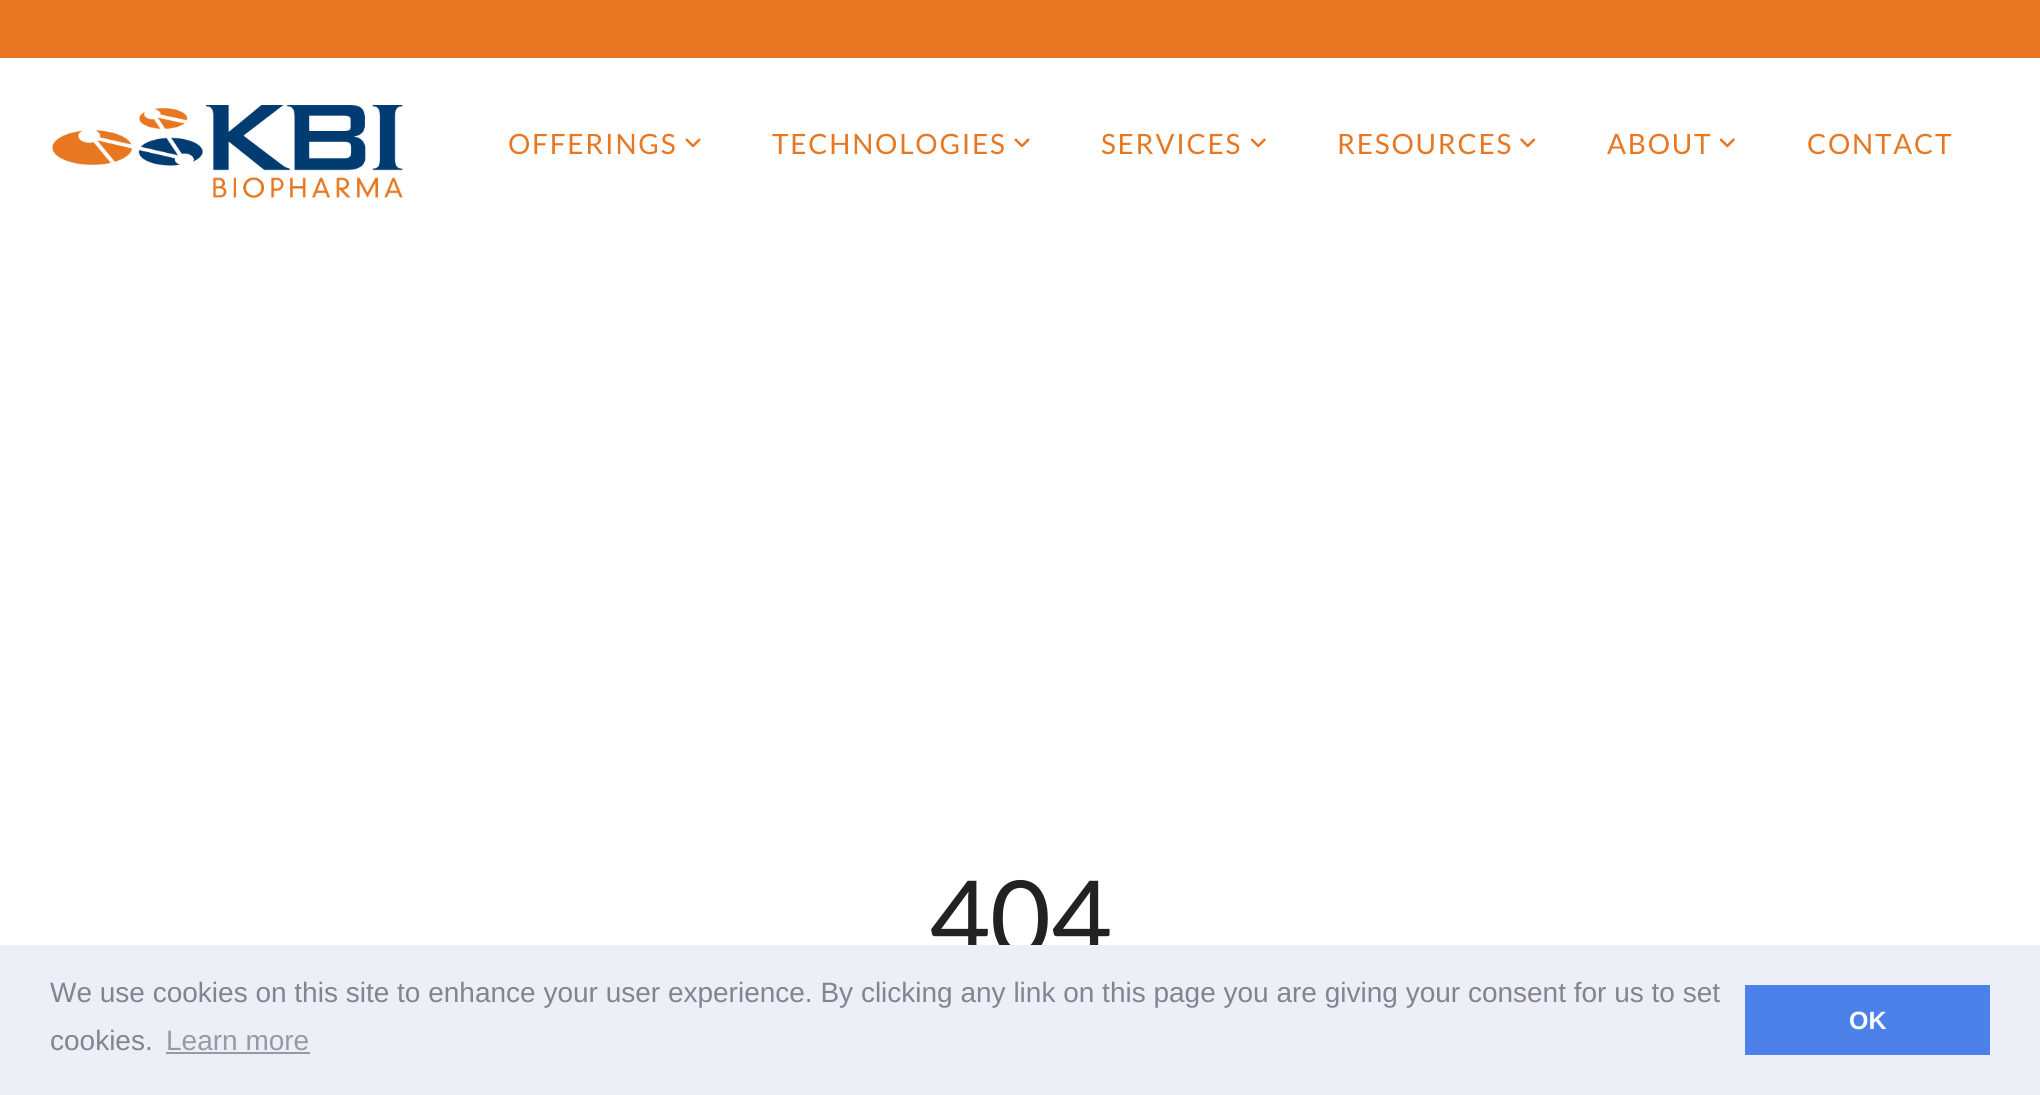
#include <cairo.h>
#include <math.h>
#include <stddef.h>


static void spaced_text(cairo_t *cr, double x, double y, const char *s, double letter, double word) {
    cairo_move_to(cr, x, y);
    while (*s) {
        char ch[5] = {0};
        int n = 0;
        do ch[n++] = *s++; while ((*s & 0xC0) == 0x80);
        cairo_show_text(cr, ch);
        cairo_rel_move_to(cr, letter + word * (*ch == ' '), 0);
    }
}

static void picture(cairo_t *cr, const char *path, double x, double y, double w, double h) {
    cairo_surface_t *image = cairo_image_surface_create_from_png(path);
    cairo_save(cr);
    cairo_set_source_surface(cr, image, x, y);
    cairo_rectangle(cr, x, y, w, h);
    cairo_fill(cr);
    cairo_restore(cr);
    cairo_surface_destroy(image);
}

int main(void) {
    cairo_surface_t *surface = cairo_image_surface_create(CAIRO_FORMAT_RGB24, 2040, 1095);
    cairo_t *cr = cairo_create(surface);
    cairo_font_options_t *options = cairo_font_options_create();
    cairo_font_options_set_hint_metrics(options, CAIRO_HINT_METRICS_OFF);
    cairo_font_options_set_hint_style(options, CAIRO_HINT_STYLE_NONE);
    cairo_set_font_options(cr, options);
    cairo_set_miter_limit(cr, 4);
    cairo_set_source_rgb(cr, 1, 1, 1);
    cairo_paint(cr);
    cairo_set_source_rgb(cr, 0.91, 0.467, 0.133);
    cairo_rectangle(cr, 0, 0, 2040, 58);
    cairo_fill(cr);
    picture(cr, "img1.png", 52, 105, 351, 93);
    cairo_select_font_face(cr, "Lato", CAIRO_FONT_SLANT_NORMAL, CAIRO_FONT_WEIGHT_NORMAL);
    cairo_set_font_size(cr, 28);
    spaced_text(cr, 508, 154, "OFFERINGS", 1.75, 0);
    picture(cr, "img2.png", 685, 138, 16, 10);
    spaced_text(cr, 772, 154, "TECHNOLOGIES", 1.75, 0);
    picture(cr, "img2.png", 1014, 138, 16, 10);
    spaced_text(cr, 1101, 154, "SERVICES", 1.75, 0);
    picture(cr, "img3.png", 1250, 138, 16, 10);
    spaced_text(cr, 1337, 154, "RESOURCES", 1.75, 0);
    picture(cr, "img4.png", 1520, 138, 16, 10);
    spaced_text(cr, 1607, 154, "ABOUT", 1.75, 0);
    picture(cr, "img3.png", 1719, 138, 16, 10);
    spaced_text(cr, 1807, 154, "CONTACT", 1.75, 0);
    cairo_set_font_size(cr, 105);
    cairo_set_source_rgb(cr, 0.133, 0.133, 0.133);
    cairo_move_to(cr, 929, 956);
    cairo_show_text(cr, "404");
    cairo_set_source_rgb(cr, 0.929, 0.937, 0.961);
    cairo_rectangle(cr, 0, 945, 2040, 150);
    cairo_fill(cr);
    cairo_select_font_face(cr, "Liberation Sans", CAIRO_FONT_SLANT_NORMAL, CAIRO_FONT_WEIGHT_NORMAL);
    cairo_set_font_size(cr, 28);
    cairo_set_source_rgb(cr, 0.514, 0.514, 0.569);
    cairo_move_to(cr, 50, 1002);
    cairo_show_text(cr, "We use cookies on this site to enhance your user experience. By clicking any link on this page you are giving your consent for us to set");
    cairo_move_to(cr, 50, 1050);
    cairo_show_text(cr, "cookies.");
    cairo_set_source_rgb(cr, 0.596, 0.6, 0.647);
    cairo_move_to(cr, 166, 1050);
    cairo_show_text(cr, "Learn more");
    cairo_rectangle(cr, 166, 1052, 144, 2);
    cairo_fill(cr);
    cairo_set_source_rgb(cr, 0.294, 0.506, 0.91);
    cairo_rectangle(cr, 1745, 985, 245, 70);
    cairo_fill(cr);
    cairo_select_font_face(cr, "Liberation Sans", CAIRO_FONT_SLANT_NORMAL, CAIRO_FONT_WEIGHT_BOLD);
    cairo_set_font_size(cr, 25);
    cairo_set_source_rgb(cr, 1, 1, 1);
    cairo_move_to(cr, 1849, 1029);
    cairo_show_text(cr, "OK");
    cairo_surface_write_to_png(surface, "page.png");
    cairo_font_options_destroy(options);
    cairo_destroy(cr);
    cairo_surface_destroy(surface);
    return 0;
}
